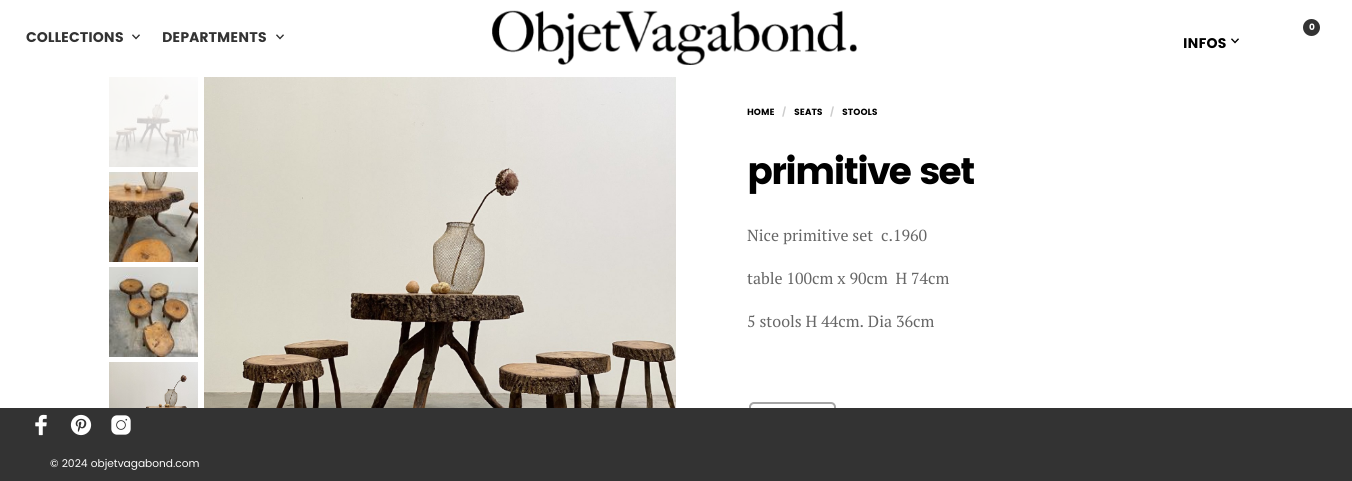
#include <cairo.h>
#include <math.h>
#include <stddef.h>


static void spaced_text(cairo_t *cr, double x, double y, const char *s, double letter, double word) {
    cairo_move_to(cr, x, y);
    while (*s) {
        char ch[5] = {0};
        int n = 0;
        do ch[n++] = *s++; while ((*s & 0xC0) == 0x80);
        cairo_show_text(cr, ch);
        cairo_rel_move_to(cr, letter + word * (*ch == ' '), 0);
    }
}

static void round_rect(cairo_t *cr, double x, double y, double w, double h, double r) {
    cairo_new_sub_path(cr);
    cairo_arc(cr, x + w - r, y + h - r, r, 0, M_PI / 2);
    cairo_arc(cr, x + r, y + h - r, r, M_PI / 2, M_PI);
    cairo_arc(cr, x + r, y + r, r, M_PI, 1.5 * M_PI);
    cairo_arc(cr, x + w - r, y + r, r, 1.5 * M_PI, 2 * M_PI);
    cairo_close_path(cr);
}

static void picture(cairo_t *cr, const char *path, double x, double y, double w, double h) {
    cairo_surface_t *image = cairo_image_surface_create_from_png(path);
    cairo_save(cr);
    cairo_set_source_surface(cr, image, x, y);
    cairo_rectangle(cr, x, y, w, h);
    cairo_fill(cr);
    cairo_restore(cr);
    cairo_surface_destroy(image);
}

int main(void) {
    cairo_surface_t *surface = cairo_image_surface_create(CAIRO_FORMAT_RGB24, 1352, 481);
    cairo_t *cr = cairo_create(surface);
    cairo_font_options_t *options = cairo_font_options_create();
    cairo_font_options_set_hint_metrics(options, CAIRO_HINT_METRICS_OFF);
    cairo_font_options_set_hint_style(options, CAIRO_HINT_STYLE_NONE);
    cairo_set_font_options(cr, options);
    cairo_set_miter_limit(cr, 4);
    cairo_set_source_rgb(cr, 1, 1, 1);
    cairo_paint(cr);
    cairo_select_font_face(cr, "Poppins", CAIRO_FONT_SLANT_NORMAL, CAIRO_FONT_WEIGHT_BOLD);
    cairo_set_font_size(cr, 14);
    cairo_set_source_rgb(cr, 0.2, 0.2, 0.2);
    cairo_move_to(cr, 26, 42);
    cairo_show_text(cr, "COLLECTIONS");
    picture(cr, "img1.png", 132, 34, 8, 6);
    cairo_move_to(cr, 162, 42);
    cairo_show_text(cr, "DEPARTMENTS");
    picture(cr, "img1.png", 276, 34, 8, 6);
    picture(cr, "img2.png", 492, 10, 365, 55);
    cairo_arc(cr, 1311.5, 27.5, 8.5, 0, 2 * M_PI);
    cairo_fill(cr);
    cairo_set_font_size(cr, 9);
    cairo_set_source_rgb(cr, 1, 1, 1);
    cairo_move_to(cr, 1309, 30);
    cairo_show_text(cr, "0");
    cairo_set_font_size(cr, 14);
    cairo_set_source_rgb(cr, 0, 0, 0);
    cairo_move_to(cr, 1183, 48);
    cairo_show_text(cr, "INFOS");
    picture(cr, "img3.png", 1231, 38, 8, 6);
    picture(cr, "img4.png", 109, 77, 89, 90);
    picture(cr, "img5.png", 109, 172, 89, 90);
    picture(cr, "img6.png", 109, 267, 89, 90);
    picture(cr, "img7.png", 109, 362, 89, 46);
    picture(cr, "img8.png", 204, 77, 472, 331);
    cairo_set_font_size(cr, 9);
    cairo_move_to(cr, 747, 115);
    cairo_show_text(cr, "HOME");
    cairo_set_source_rgb(cr, 0.8, 0.8, 0.8);
    cairo_move_to(cr, 782, 115);
    cairo_show_text(cr, "/");
    cairo_set_source_rgb(cr, 0, 0, 0);
    cairo_move_to(cr, 794, 115);
    cairo_show_text(cr, "SEATS");
    cairo_set_source_rgb(cr, 0.8, 0.8, 0.8);
    cairo_move_to(cr, 830, 115);
    cairo_show_text(cr, "/");
    cairo_set_source_rgb(cr, 0, 0, 0);
    cairo_move_to(cr, 842, 115);
    cairo_show_text(cr, "STOOLS");
    cairo_set_font_size(cr, 37.25);
    spaced_text(cr, 747, 184, "primitive set", -1.9, 0);
    cairo_select_font_face(cr, "PT Serif", CAIRO_FONT_SLANT_NORMAL, CAIRO_FONT_WEIGHT_NORMAL);
    cairo_set_font_size(cr, 16);
    cairo_set_source_rgb(cr, 0.4, 0.4, 0.4);
    cairo_move_to(cr, 747, 241);
    cairo_show_text(cr, "Nice primitive set  c.1960");
    cairo_move_to(cr, 747, 284);
    cairo_show_text(cr, "table 100cm x 90cm  H 74cm");
    cairo_move_to(cr, 747, 327);
    cairo_show_text(cr, "5 stools H 44cm. Dia 36cm");
    round_rect(cr, 750, 403, 85, 15, 4);
    cairo_set_source_rgb(cr, 0.651, 0.651, 0.651);
    cairo_stroke(cr);
    cairo_set_source_rgb(cr, 0.2, 0.2, 0.2);
    cairo_rectangle(cr, 0, 408, 1352, 73);
    cairo_fill(cr);
    picture(cr, "img9.png", 35, 414, 12, 22);
    picture(cr, "img10.png", 70, 414, 22, 22);
    picture(cr, "img11.png", 111, 415, 20, 20);
    cairo_select_font_face(cr, "Poppins", CAIRO_FONT_SLANT_NORMAL, CAIRO_FONT_WEIGHT_NORMAL);
    cairo_set_font_size(cr, 10.7);
    cairo_set_source_rgb(cr, 1, 1, 1);
    cairo_move_to(cr, 50, 467);
    cairo_show_text(cr, "© 2024 objetvagabond.com");
    cairo_surface_write_to_png(surface, "page.png");
    cairo_font_options_destroy(options);
    cairo_destroy(cr);
    cairo_surface_destroy(surface);
    return 0;
}
